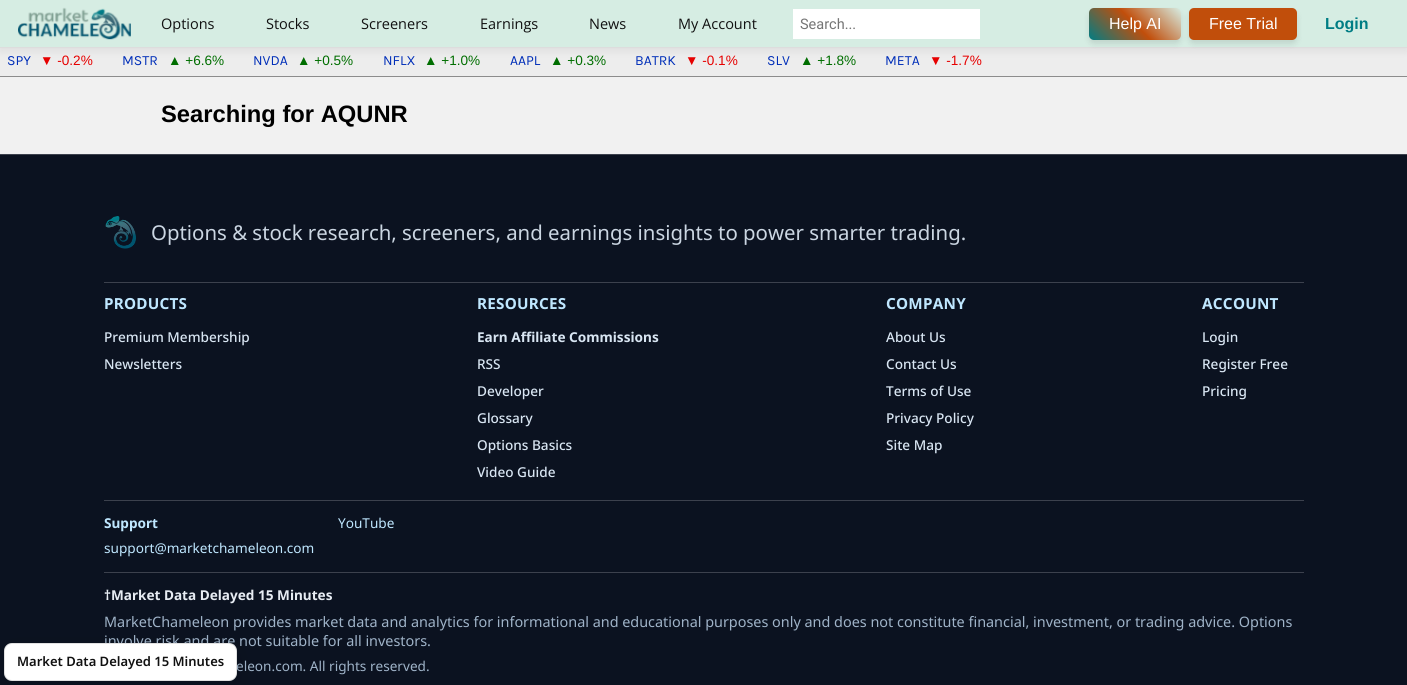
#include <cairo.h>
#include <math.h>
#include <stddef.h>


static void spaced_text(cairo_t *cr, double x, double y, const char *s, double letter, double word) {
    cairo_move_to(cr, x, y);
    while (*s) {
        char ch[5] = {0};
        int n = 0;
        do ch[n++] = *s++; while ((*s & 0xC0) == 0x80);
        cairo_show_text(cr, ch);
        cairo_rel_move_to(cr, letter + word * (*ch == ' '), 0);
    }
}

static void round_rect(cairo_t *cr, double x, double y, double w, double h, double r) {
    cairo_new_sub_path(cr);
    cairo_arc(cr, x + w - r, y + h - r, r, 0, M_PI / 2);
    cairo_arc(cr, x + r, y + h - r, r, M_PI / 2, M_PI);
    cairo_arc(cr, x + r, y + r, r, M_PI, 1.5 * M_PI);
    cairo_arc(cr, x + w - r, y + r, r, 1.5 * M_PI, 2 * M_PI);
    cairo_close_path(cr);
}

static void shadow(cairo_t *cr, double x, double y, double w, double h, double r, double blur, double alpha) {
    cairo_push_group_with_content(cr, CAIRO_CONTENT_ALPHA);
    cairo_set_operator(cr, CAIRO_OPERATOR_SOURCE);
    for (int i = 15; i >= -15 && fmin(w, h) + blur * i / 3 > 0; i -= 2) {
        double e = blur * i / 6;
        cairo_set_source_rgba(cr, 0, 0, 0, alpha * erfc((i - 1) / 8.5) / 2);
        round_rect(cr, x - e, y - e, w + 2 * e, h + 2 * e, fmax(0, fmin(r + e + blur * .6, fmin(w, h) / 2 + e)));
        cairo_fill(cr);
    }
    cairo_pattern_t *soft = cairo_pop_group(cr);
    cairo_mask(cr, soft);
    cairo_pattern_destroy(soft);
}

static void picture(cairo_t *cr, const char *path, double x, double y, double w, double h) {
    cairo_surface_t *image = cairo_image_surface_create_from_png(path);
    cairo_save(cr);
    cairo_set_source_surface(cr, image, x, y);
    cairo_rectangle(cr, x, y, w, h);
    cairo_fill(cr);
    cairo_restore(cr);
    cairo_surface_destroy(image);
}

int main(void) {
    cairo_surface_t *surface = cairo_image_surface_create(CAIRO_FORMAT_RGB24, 1407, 685);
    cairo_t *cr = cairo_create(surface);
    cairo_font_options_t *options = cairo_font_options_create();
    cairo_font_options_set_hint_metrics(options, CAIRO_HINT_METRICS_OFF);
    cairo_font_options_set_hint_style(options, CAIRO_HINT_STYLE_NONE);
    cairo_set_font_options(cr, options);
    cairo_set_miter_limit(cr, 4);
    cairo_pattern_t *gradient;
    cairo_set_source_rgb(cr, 0.945, 0.945, 0.945);
    cairo_paint(cr);
    cairo_set_source_rgb(cr, 0.929, 0.929, 0.929);
    cairo_rectangle(cr, 0, 48, 1407, 28);
    cairo_fill(cr);
    cairo_set_source_rgb(cr, 0, 0, 0);
    shadow(cr, 0, 2, 1407, 48, 0, 5, 0.08);
    cairo_set_source_rgb(cr, 0.839, 0.929, 0.89);
    cairo_rectangle(cr, 0, 0, 1407, 47);
    cairo_fill(cr);
    cairo_set_source_rgb(cr, 0.867, 0.867, 0.867);
    cairo_rectangle(cr, 0, 47, 1407, 1);
    cairo_fill(cr);
    picture(cr, "img1.png", 18, 7, 113, 33);
    cairo_select_font_face(cr, "Open Sans", CAIRO_FONT_SLANT_NORMAL, CAIRO_FONT_WEIGHT_NORMAL);
    cairo_set_font_size(cr, 14.5);
    cairo_set_source_rgb(cr, 0.067, 0.067, 0.067);
    cairo_move_to(cr, 161, 29);
    cairo_show_text(cr, "Options");
    cairo_move_to(cr, 266, 29);
    cairo_show_text(cr, "Stocks");
    cairo_move_to(cr, 361, 29);
    cairo_show_text(cr, "Screeners");
    cairo_move_to(cr, 480, 29);
    cairo_show_text(cr, "Earnings");
    cairo_move_to(cr, 589, 29);
    cairo_show_text(cr, "News");
    cairo_move_to(cr, 678, 29);
    cairo_show_text(cr, "My Account");
    cairo_set_source_rgb(cr, 1, 1, 1);
    cairo_rectangle(cr, 793, 9, 187, 30);
    cairo_fill(cr);
    cairo_select_font_face(cr, "Roboto", CAIRO_FONT_SLANT_NORMAL, CAIRO_FONT_WEIGHT_NORMAL);
    cairo_set_source_rgb(cr, 0.459, 0.459, 0.459);
    cairo_move_to(cr, 800, 29);
    cairo_show_text(cr, "Search...");
    cairo_set_source_rgb(cr, 0, 0, 0);
    shadow(cr, 1089, 12, 92, 32, 5, 3, 0.1);
    gradient = cairo_pattern_create_linear(1104, 55, 1166, -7);
    cairo_pattern_add_color_stop_rgba(gradient, 0, 0, 0.49, 0.518, 1);
    cairo_pattern_add_color_stop_rgba(gradient, 0.5, 0.757, 0.306, 0.043, 1);
    cairo_pattern_add_color_stop_rgba(gradient, 1, 0.839, 0.929, 0.89, 1);
    cairo_set_source(cr, gradient);
    cairo_pattern_destroy(gradient);
    round_rect(cr, 1089, 8, 92, 32, 5);
    cairo_fill(cr);
    cairo_select_font_face(cr, "Liberation Sans", CAIRO_FONT_SLANT_NORMAL, CAIRO_FONT_WEIGHT_NORMAL);
    cairo_set_font_size(cr, 16);
    cairo_set_source_rgb(cr, 1, 1, 1);
    cairo_move_to(cr, 1109, 29);
    cairo_show_text(cr, "Help AI");
    cairo_set_source_rgb(cr, 0, 0, 0);
    shadow(cr, 1189, 12, 108, 32, 5, 3, 0.1);
    cairo_set_source_rgb(cr, 0.757, 0.306, 0.043);
    round_rect(cr, 1189, 8, 108, 32, 5);
    cairo_fill(cr);
    cairo_set_source_rgb(cr, 1, 1, 1);
    cairo_move_to(cr, 1209, 29);
    cairo_show_text(cr, "Free Trial");
    cairo_select_font_face(cr, "Liberation Sans", CAIRO_FONT_SLANT_NORMAL, CAIRO_FONT_WEIGHT_BOLD);
    cairo_set_source_rgb(cr, 0, 0.49, 0.518);
    cairo_move_to(cr, 1325, 29);
    cairo_show_text(cr, "Login");
    cairo_set_source_rgb(cr, 0.549, 0.549, 0.549);
    cairo_rectangle(cr, 0, 76, 1407, 1);
    cairo_fill(cr);
    cairo_select_font_face(cr, "Karla", CAIRO_FONT_SLANT_NORMAL, CAIRO_FONT_WEIGHT_NORMAL);
    cairo_set_font_size(cr, 14);
    cairo_set_source_rgb(cr, 0, 0.18, 0.722);
    cairo_move_to(cr, 7, 65);
    cairo_show_text(cr, "SPY");
    cairo_select_font_face(cr, "Liberation Sans", CAIRO_FONT_SLANT_NORMAL, CAIRO_FONT_WEIGHT_NORMAL);
    cairo_set_font_size(cr, 13.6);
    cairo_set_source_rgb(cr, 0.902, 0, 0);
    cairo_move_to(cr, 40, 65);
    cairo_show_text(cr, "▼ -0.2%");
    cairo_select_font_face(cr, "Karla", CAIRO_FONT_SLANT_NORMAL, CAIRO_FONT_WEIGHT_NORMAL);
    cairo_set_font_size(cr, 14);
    cairo_set_source_rgb(cr, 0, 0.18, 0.722);
    cairo_move_to(cr, 122, 65);
    cairo_show_text(cr, "MSTR");
    cairo_select_font_face(cr, "Liberation Sans", CAIRO_FONT_SLANT_NORMAL, CAIRO_FONT_WEIGHT_NORMAL);
    cairo_set_font_size(cr, 13.6);
    cairo_set_source_rgb(cr, 0, 0.431, 0);
    cairo_move_to(cr, 168, 65);
    cairo_show_text(cr, "▲ +6.6%");
    cairo_select_font_face(cr, "Karla", CAIRO_FONT_SLANT_NORMAL, CAIRO_FONT_WEIGHT_NORMAL);
    cairo_set_font_size(cr, 14);
    cairo_set_source_rgb(cr, 0, 0.18, 0.722);
    cairo_move_to(cr, 253, 65);
    cairo_show_text(cr, "NVDA");
    cairo_select_font_face(cr, "Liberation Sans", CAIRO_FONT_SLANT_NORMAL, CAIRO_FONT_WEIGHT_NORMAL);
    cairo_set_font_size(cr, 13.6);
    cairo_set_source_rgb(cr, 0, 0.431, 0);
    cairo_move_to(cr, 297, 65);
    cairo_show_text(cr, "▲ +0.5%");
    cairo_select_font_face(cr, "Karla", CAIRO_FONT_SLANT_NORMAL, CAIRO_FONT_WEIGHT_NORMAL);
    cairo_set_font_size(cr, 14);
    cairo_set_source_rgb(cr, 0, 0.18, 0.722);
    cairo_move_to(cr, 383, 65);
    cairo_show_text(cr, "NFLX");
    cairo_select_font_face(cr, "Liberation Sans", CAIRO_FONT_SLANT_NORMAL, CAIRO_FONT_WEIGHT_NORMAL);
    cairo_set_font_size(cr, 13.6);
    cairo_set_source_rgb(cr, 0, 0.431, 0);
    cairo_move_to(cr, 424, 65);
    cairo_show_text(cr, "▲ +1.0%");
    cairo_select_font_face(cr, "Karla", CAIRO_FONT_SLANT_NORMAL, CAIRO_FONT_WEIGHT_NORMAL);
    cairo_set_font_size(cr, 14);
    cairo_set_source_rgb(cr, 0, 0.18, 0.722);
    cairo_move_to(cr, 510, 65);
    cairo_show_text(cr, "AAPL");
    cairo_select_font_face(cr, "Liberation Sans", CAIRO_FONT_SLANT_NORMAL, CAIRO_FONT_WEIGHT_NORMAL);
    cairo_set_font_size(cr, 13.6);
    cairo_set_source_rgb(cr, 0, 0.431, 0);
    cairo_move_to(cr, 550, 65);
    cairo_show_text(cr, "▲ +0.3%");
    cairo_select_font_face(cr, "Karla", CAIRO_FONT_SLANT_NORMAL, CAIRO_FONT_WEIGHT_NORMAL);
    cairo_set_font_size(cr, 14);
    cairo_set_source_rgb(cr, 0, 0.18, 0.722);
    cairo_move_to(cr, 635, 65);
    cairo_show_text(cr, "BATRK");
    cairo_select_font_face(cr, "Liberation Sans", CAIRO_FONT_SLANT_NORMAL, CAIRO_FONT_WEIGHT_NORMAL);
    cairo_set_font_size(cr, 13.6);
    cairo_set_source_rgb(cr, 0.902, 0, 0);
    cairo_move_to(cr, 685, 65);
    cairo_show_text(cr, "▼ -0.1%");
    cairo_select_font_face(cr, "Karla", CAIRO_FONT_SLANT_NORMAL, CAIRO_FONT_WEIGHT_NORMAL);
    cairo_set_font_size(cr, 14);
    cairo_set_source_rgb(cr, 0, 0.18, 0.722);
    cairo_move_to(cr, 767, 65);
    cairo_show_text(cr, "SLV");
    cairo_select_font_face(cr, "Liberation Sans", CAIRO_FONT_SLANT_NORMAL, CAIRO_FONT_WEIGHT_NORMAL);
    cairo_set_font_size(cr, 13.6);
    cairo_set_source_rgb(cr, 0, 0.431, 0);
    cairo_move_to(cr, 800, 65);
    cairo_show_text(cr, "▲ +1.8%");
    cairo_select_font_face(cr, "Karla", CAIRO_FONT_SLANT_NORMAL, CAIRO_FONT_WEIGHT_NORMAL);
    cairo_set_font_size(cr, 14);
    cairo_set_source_rgb(cr, 0, 0.18, 0.722);
    cairo_move_to(cr, 885, 65);
    cairo_show_text(cr, "META");
    cairo_select_font_face(cr, "Liberation Sans", CAIRO_FONT_SLANT_NORMAL, CAIRO_FONT_WEIGHT_NORMAL);
    cairo_set_font_size(cr, 13.6);
    cairo_set_source_rgb(cr, 0.902, 0, 0);
    cairo_move_to(cr, 929, 65);
    cairo_show_text(cr, "▼ -1.7%");
    cairo_select_font_face(cr, "Liberation Sans", CAIRO_FONT_SLANT_NORMAL, CAIRO_FONT_WEIGHT_BOLD);
    cairo_set_font_size(cr, 23.75);
    cairo_set_source_rgb(cr, 0, 0, 0);
    cairo_move_to(cr, 161, 122);
    cairo_show_text(cr, "Searching for AQUNR");
    cairo_set_source_rgb(cr, 0.043, 0.071, 0.125);
    cairo_rectangle(cr, 0, 155, 1407, 530);
    cairo_fill(cr);
    cairo_set_source_rgb(cr, 0.235, 0.255, 0.302);
    cairo_rectangle(cr, 0, 154, 1407, 1);
    cairo_fill(cr);
    picture(cr, "img2.png", 105, 216, 31, 33);
    cairo_select_font_face(cr, "Noto Sans", CAIRO_FONT_SLANT_NORMAL, CAIRO_FONT_WEIGHT_NORMAL);
    cairo_set_font_size(cr, 20.4);
    cairo_set_source_rgb(cr, 0.796, 0.839, 0.886);
    cairo_move_to(cr, 151, 240);
    cairo_show_text(cr, "Options & stock research, screeners, and earnings insights to power smarter trading.");
    cairo_set_source_rgb(cr, 0.235, 0.255, 0.302);
    cairo_rectangle(cr, 104, 282, 1200, 1);
    cairo_fill(cr);
    cairo_select_font_face(cr, "Noto Sans", CAIRO_FONT_SLANT_NORMAL, CAIRO_FONT_WEIGHT_BOLD);
    cairo_set_font_size(cr, 15.25);
    cairo_set_source_rgb(cr, 0.749, 0.906, 1);
    spaced_text(cr, 104, 309, "PRODUCTS", 0.25, 0);
    cairo_select_font_face(cr, "Noto Sans Medium", CAIRO_FONT_SLANT_NORMAL, CAIRO_FONT_WEIGHT_NORMAL);
    cairo_set_font_size(cr, 13.6);
    cairo_set_source_rgb(cr, 0.847, 0.898, 0.949);
    cairo_move_to(cr, 104, 342);
    cairo_show_text(cr, "Premium Membership");
    cairo_move_to(cr, 104, 369);
    cairo_show_text(cr, "Newsletters");
    cairo_select_font_face(cr, "Noto Sans", CAIRO_FONT_SLANT_NORMAL, CAIRO_FONT_WEIGHT_BOLD);
    cairo_set_font_size(cr, 15.25);
    cairo_set_source_rgb(cr, 0.749, 0.906, 1);
    spaced_text(cr, 477, 309, "RESOURCES", 0.25, 0);
    cairo_set_font_size(cr, 13.6);
    cairo_set_source_rgb(cr, 0.847, 0.898, 0.949);
    cairo_move_to(cr, 477, 342);
    cairo_show_text(cr, "Earn Affiliate Commissions");
    cairo_select_font_face(cr, "Noto Sans Medium", CAIRO_FONT_SLANT_NORMAL, CAIRO_FONT_WEIGHT_NORMAL);
    cairo_move_to(cr, 477, 369);
    cairo_show_text(cr, "RSS");
    cairo_move_to(cr, 477, 396);
    cairo_show_text(cr, "Developer");
    cairo_move_to(cr, 477, 423);
    cairo_show_text(cr, "Glossary");
    cairo_move_to(cr, 477, 450);
    cairo_show_text(cr, "Options Basics");
    cairo_move_to(cr, 477, 477);
    cairo_show_text(cr, "Video Guide");
    cairo_select_font_face(cr, "Noto Sans", CAIRO_FONT_SLANT_NORMAL, CAIRO_FONT_WEIGHT_BOLD);
    cairo_set_font_size(cr, 15.25);
    cairo_set_source_rgb(cr, 0.749, 0.906, 1);
    spaced_text(cr, 886, 309, "COMPANY", 0.25, 0);
    cairo_select_font_face(cr, "Noto Sans Medium", CAIRO_FONT_SLANT_NORMAL, CAIRO_FONT_WEIGHT_NORMAL);
    cairo_set_font_size(cr, 13.6);
    cairo_set_source_rgb(cr, 0.847, 0.898, 0.949);
    cairo_move_to(cr, 886, 342);
    cairo_show_text(cr, "About Us");
    cairo_move_to(cr, 886, 369);
    cairo_show_text(cr, "Contact Us");
    cairo_move_to(cr, 886, 396);
    cairo_show_text(cr, "Terms of Use");
    cairo_move_to(cr, 886, 423);
    cairo_show_text(cr, "Privacy Policy");
    cairo_move_to(cr, 886, 450);
    cairo_show_text(cr, "Site Map");
    cairo_select_font_face(cr, "Noto Sans", CAIRO_FONT_SLANT_NORMAL, CAIRO_FONT_WEIGHT_BOLD);
    cairo_set_font_size(cr, 15.25);
    cairo_set_source_rgb(cr, 0.749, 0.906, 1);
    spaced_text(cr, 1202, 309, "ACCOUNT", 0.25, 0);
    cairo_select_font_face(cr, "Noto Sans Medium", CAIRO_FONT_SLANT_NORMAL, CAIRO_FONT_WEIGHT_NORMAL);
    cairo_set_font_size(cr, 13.6);
    cairo_set_source_rgb(cr, 0.847, 0.898, 0.949);
    cairo_move_to(cr, 1202, 342);
    cairo_show_text(cr, "Login");
    cairo_move_to(cr, 1202, 369);
    cairo_show_text(cr, "Register Free");
    cairo_move_to(cr, 1202, 396);
    cairo_show_text(cr, "Pricing");
    cairo_set_source_rgb(cr, 0.235, 0.255, 0.302);
    cairo_rectangle(cr, 104, 500, 1200, 1);
    cairo_fill(cr);
    cairo_select_font_face(cr, "Noto Sans", CAIRO_FONT_SLANT_NORMAL, CAIRO_FONT_WEIGHT_BOLD);
    cairo_set_source_rgb(cr, 0.749, 0.906, 1);
    cairo_move_to(cr, 104, 528);
    cairo_show_text(cr, "Support");
    cairo_select_font_face(cr, "Noto Sans", CAIRO_FONT_SLANT_NORMAL, CAIRO_FONT_WEIGHT_NORMAL);
    cairo_move_to(cr, 104, 553);
    cairo_show_text(cr, "support@marketchameleon.com");
    cairo_move_to(cr, 338, 528);
    cairo_show_text(cr, "YouTube");
    cairo_set_source_rgb(cr, 0.235, 0.255, 0.302);
    cairo_rectangle(cr, 104, 572, 1200, 1);
    cairo_fill(cr);
    cairo_select_font_face(cr, "Noto Sans", CAIRO_FONT_SLANT_NORMAL, CAIRO_FONT_WEIGHT_BOLD);
    cairo_set_source_rgb(cr, 0.906, 0.925, 0.953);
    cairo_move_to(cr, 104, 600);
    cairo_show_text(cr, "†Market Data Delayed 15 Minutes");
    cairo_select_font_face(cr, "Noto Sans", CAIRO_FONT_SLANT_NORMAL, CAIRO_FONT_WEIGHT_NORMAL);
    cairo_set_font_size(cr, 14.4);
    cairo_set_source_rgb(cr, 0.624, 0.702, 0.784);
    cairo_move_to(cr, 104, 627);
    cairo_show_text(cr, "MarketChameleon provides market data and analytics for informational and educational purposes only and does not constitute financial, investment, or trading advice. Options");
    cairo_move_to(cr, 104, 646);
    cairo_show_text(cr, "involve risk and are not suitable for all investors.");
    cairo_set_font_size(cr, 13.6);
    cairo_move_to(cr, 236, 671);
    cairo_show_text(cr, "eleon.com. All rights reserved.");
    cairo_set_source_rgb(cr, 0, 0, 0);
    shadow(cr, 4, 649, 233, 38, 8, 10, 0.12);
    cairo_set_source_rgb(cr, 1, 1, 1);
    round_rect(cr, 4, 643, 233, 38, 8);
    cairo_fill(cr);
    round_rect(cr, 4.5, 643.5, 232, 37, 7.5);
    cairo_set_source_rgba(cr, 0, 0, 0, 0.12);
    cairo_set_line_width(cr, 1);
    cairo_stroke(cr);
    cairo_select_font_face(cr, "Noto Sans SemiBold", CAIRO_FONT_SLANT_NORMAL, CAIRO_FONT_WEIGHT_NORMAL);
    cairo_set_font_size(cr, 13);
    cairo_set_source_rgb(cr, 0.067, 0.067, 0.067);
    cairo_move_to(cr, 17, 666);
    cairo_show_text(cr, "Market Data Delayed 15 Minutes");
    cairo_surface_write_to_png(surface, "page.png");
    cairo_font_options_destroy(options);
    cairo_destroy(cr);
    cairo_surface_destroy(surface);
    return 0;
}
